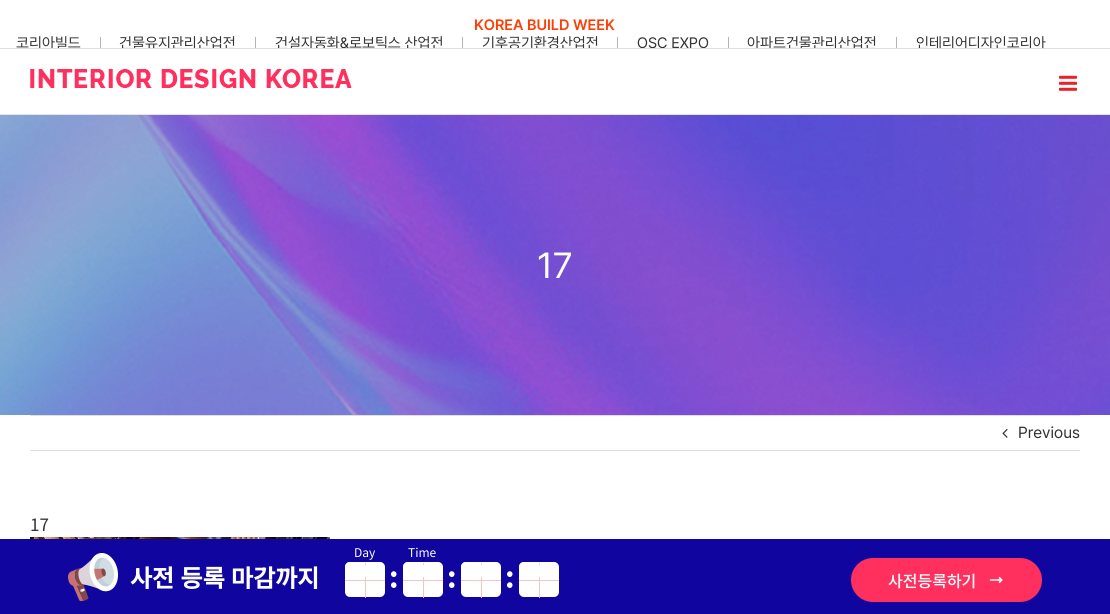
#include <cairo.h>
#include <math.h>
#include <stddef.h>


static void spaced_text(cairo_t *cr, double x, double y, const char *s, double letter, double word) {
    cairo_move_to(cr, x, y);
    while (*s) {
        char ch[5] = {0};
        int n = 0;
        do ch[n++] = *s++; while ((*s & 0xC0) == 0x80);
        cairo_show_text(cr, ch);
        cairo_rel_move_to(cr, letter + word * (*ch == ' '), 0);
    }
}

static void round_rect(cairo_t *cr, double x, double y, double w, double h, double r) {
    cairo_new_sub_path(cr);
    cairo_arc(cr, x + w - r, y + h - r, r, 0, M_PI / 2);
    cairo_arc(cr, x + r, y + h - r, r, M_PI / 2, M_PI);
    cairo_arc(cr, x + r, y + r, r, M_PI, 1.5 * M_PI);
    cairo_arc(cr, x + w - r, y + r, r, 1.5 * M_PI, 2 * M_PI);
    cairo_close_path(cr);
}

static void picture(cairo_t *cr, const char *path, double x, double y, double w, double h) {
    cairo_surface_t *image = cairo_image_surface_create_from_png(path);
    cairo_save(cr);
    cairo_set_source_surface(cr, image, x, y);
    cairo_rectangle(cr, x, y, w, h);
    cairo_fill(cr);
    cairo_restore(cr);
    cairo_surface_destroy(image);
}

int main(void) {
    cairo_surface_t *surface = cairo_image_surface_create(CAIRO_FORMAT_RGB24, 1110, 614);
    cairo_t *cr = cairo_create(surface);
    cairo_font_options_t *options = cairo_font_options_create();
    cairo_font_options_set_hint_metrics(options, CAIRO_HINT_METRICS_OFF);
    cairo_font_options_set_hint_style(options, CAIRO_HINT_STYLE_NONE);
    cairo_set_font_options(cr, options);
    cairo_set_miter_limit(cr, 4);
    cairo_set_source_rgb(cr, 1, 1, 1);
    cairo_paint(cr);
    cairo_select_font_face(cr, "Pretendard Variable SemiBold", CAIRO_FONT_SLANT_NORMAL, CAIRO_FONT_WEIGHT_NORMAL);
    cairo_set_font_size(cr, 15);
    cairo_set_source_rgb(cr, 0.984, 0.251, 0.027);
    cairo_move_to(cr, 474, 30);
    cairo_show_text(cr, "KOREA BUILD WEEK");
    cairo_select_font_face(cr, "Pretendard Variable", CAIRO_FONT_SLANT_NORMAL, CAIRO_FONT_WEIGHT_NORMAL);
    cairo_set_source_rgb(cr, 0.2, 0.2, 0.2);
    cairo_move_to(cr, 16, 48);
    cairo_show_text(cr, "코리아빌드");
    cairo_set_source_rgb(cr, 0.706, 0.706, 0.706);
    cairo_rectangle(cr, 100, 37, 1, 12);
    cairo_fill(cr);
    cairo_set_source_rgb(cr, 0.2, 0.2, 0.2);
    cairo_move_to(cr, 119, 48);
    cairo_show_text(cr, "건물유지관리산업전");
    cairo_set_source_rgb(cr, 0.706, 0.706, 0.706);
    cairo_rectangle(cr, 255, 37, 1, 12);
    cairo_fill(cr);
    cairo_set_source_rgb(cr, 0.2, 0.2, 0.2);
    cairo_move_to(cr, 275, 48);
    cairo_show_text(cr, "건설자동화&로보틱스 산업전");
    cairo_set_source_rgb(cr, 0.706, 0.706, 0.706);
    cairo_rectangle(cr, 462, 37, 1, 12);
    cairo_fill(cr);
    cairo_set_source_rgb(cr, 0.2, 0.2, 0.2);
    cairo_move_to(cr, 482, 48);
    cairo_show_text(cr, "기후공기환경산업전");
    cairo_set_source_rgb(cr, 0.706, 0.706, 0.706);
    cairo_rectangle(cr, 617, 37, 1, 12);
    cairo_fill(cr);
    cairo_set_source_rgb(cr, 0.2, 0.2, 0.2);
    cairo_move_to(cr, 637, 48);
    cairo_show_text(cr, "OSC EXPO");
    cairo_set_source_rgb(cr, 0.706, 0.706, 0.706);
    cairo_rectangle(cr, 728, 37, 1, 12);
    cairo_fill(cr);
    cairo_set_source_rgb(cr, 0.2, 0.2, 0.2);
    cairo_move_to(cr, 747, 48);
    cairo_show_text(cr, "아파트건물관리산업전");
    cairo_set_source_rgb(cr, 0.706, 0.706, 0.706);
    cairo_rectangle(cr, 896, 37, 1, 12);
    cairo_fill(cr);
    cairo_set_source_rgb(cr, 0.2, 0.2, 0.2);
    cairo_move_to(cr, 916, 48);
    cairo_show_text(cr, "인테리어디자인코리아");
    cairo_set_source_rgb(cr, 1, 1, 1);
    cairo_rectangle(cr, 39, 49, 1004, 1);
    cairo_fill(cr);
    cairo_set_source_rgb(cr, 0.871, 0.871, 0.871);
    cairo_rectangle(cr, 0, 48, 1110, 1);
    cairo_fill(cr);
    cairo_set_source_rgb(cr, 0.898, 0.898, 0.898);
    cairo_rectangle(cr, 0, 114, 1110, 1);
    cairo_fill(cr);
    picture(cr, "img1.png", 30, 69, 322, 19);
    picture(cr, "img2.png", 1059, 75, 18, 16);
    picture(cr, "img3.png", 0, 115, 1110, 300);
    cairo_set_font_size(cr, 36);
    cairo_set_source_rgb(cr, 1, 1, 1);
    cairo_move_to(cr, 537, 278);
    cairo_show_text(cr, "17");
    cairo_set_source_rgb(cr, 0.878, 0.871, 0.871);
    cairo_rectangle(cr, 30, 415, 1050, 1);
    cairo_fill(cr);
    cairo_rectangle(cr, 30, 450, 1050, 1);
    cairo_fill(cr);
    picture(cr, "img4.png", 1002, 429, 6, 9);
    cairo_set_font_size(cr, 16);
    cairo_set_source_rgb(cr, 0.2, 0.2, 0.2);
    cairo_move_to(cr, 1018, 438);
    cairo_show_text(cr, "Previous");
    cairo_select_font_face(cr, "Noto Sans KR", CAIRO_FONT_SLANT_NORMAL, CAIRO_FONT_WEIGHT_NORMAL);
    cairo_set_font_size(cr, 17);
    cairo_move_to(cr, 30, 531);
    cairo_show_text(cr, "17");
    picture(cr, "img5.png", 30, 537, 300, 2);
    cairo_set_source_rgb(cr, 0.063, 0.024, 0.624);
    cairo_rectangle(cr, 0, 539, 1110, 75);
    cairo_fill(cr);
    cairo_set_source_rgb(cr, 1, 1, 1);
    round_rect(cr, 345, 562, 40, 35, 5);
    cairo_fill(cr);
    cairo_set_font_size(cr, 12);
    cairo_move_to(cr, 354, 557);
    cairo_show_text(cr, "Day");
    round_rect(cr, 345, 562, 19, 18, 5);
    cairo_fill(cr);
    cairo_set_source_rgb(cr, 0.933, 0.784, 0.78);
    cairo_rectangle(cr, 365, 563, 1, 35);
    cairo_fill(cr);
    cairo_set_source_rgb(cr, 1, 1, 1);
    round_rect(cr, 365, 562, 19, 18, 5);
    cairo_fill(cr);
    cairo_set_source_rgb(cr, 0.933, 0.784, 0.78);
    cairo_rectangle(cr, 345, 580, 40, 1);
    cairo_fill(cr);
    cairo_set_source_rgb(cr, 1, 1, 1);
    round_rect(cr, 403, 562, 40, 35, 5);
    cairo_fill(cr);
    cairo_move_to(cr, 408, 557);
    cairo_show_text(cr, "Time");
    round_rect(cr, 403, 562, 19, 18, 5);
    cairo_fill(cr);
    cairo_set_source_rgb(cr, 0.933, 0.784, 0.78);
    cairo_rectangle(cr, 423, 563, 1, 35);
    cairo_fill(cr);
    cairo_set_source_rgb(cr, 1, 1, 1);
    round_rect(cr, 423, 562, 19, 18, 5);
    cairo_fill(cr);
    cairo_set_source_rgb(cr, 0.933, 0.784, 0.78);
    cairo_rectangle(cr, 403, 580, 40, 1);
    cairo_fill(cr);
    picture(cr, "img6.png", 391, 571, 6, 17);
    picture(cr, "img6.png", 449, 571, 6, 17);
    cairo_set_source_rgb(cr, 1, 1, 1);
    round_rect(cr, 461, 562, 40, 35, 5);
    cairo_fill(cr);
    round_rect(cr, 461, 562, 19, 18, 5);
    cairo_fill(cr);
    cairo_set_source_rgb(cr, 0.933, 0.784, 0.78);
    cairo_rectangle(cr, 481, 563, 1, 35);
    cairo_fill(cr);
    cairo_set_source_rgb(cr, 1, 1, 1);
    round_rect(cr, 481, 562, 19, 18, 5);
    cairo_fill(cr);
    cairo_set_source_rgb(cr, 0.933, 0.784, 0.78);
    cairo_rectangle(cr, 461, 580, 40, 1);
    cairo_fill(cr);
    picture(cr, "img6.png", 507, 571, 6, 17);
    cairo_set_source_rgb(cr, 1, 1, 1);
    round_rect(cr, 519, 562, 40, 35, 5);
    cairo_fill(cr);
    round_rect(cr, 519, 562, 19, 18, 5);
    cairo_fill(cr);
    cairo_set_source_rgb(cr, 0.933, 0.784, 0.78);
    cairo_rectangle(cr, 539, 563, 1, 35);
    cairo_fill(cr);
    cairo_set_source_rgb(cr, 1, 1, 1);
    round_rect(cr, 539, 562, 19, 18, 5);
    cairo_fill(cr);
    cairo_set_source_rgb(cr, 0.933, 0.784, 0.78);
    cairo_rectangle(cr, 519, 580, 40, 1);
    cairo_fill(cr);
    picture(cr, "img7.png", 68, 553, 50, 48);
    cairo_select_font_face(cr, "Noto Sans KR", CAIRO_FONT_SLANT_NORMAL, CAIRO_FONT_WEIGHT_BOLD);
    cairo_set_font_size(cr, 24);
    cairo_set_source_rgb(cr, 1, 1, 1);
    spaced_text(cr, 130, 587, "사전 등록 마감까지", 0, 1);
    cairo_set_source_rgb(cr, 1, 0.188, 0.369);
    round_rect(cr, 852, 559, 189, 42, 21);
    cairo_fill_preserve(cr);
    cairo_stroke(cr);
    cairo_select_font_face(cr, "Noto Sans KR Medium", CAIRO_FONT_SLANT_NORMAL, CAIRO_FONT_WEIGHT_NORMAL);
    cairo_set_font_size(cr, 16);
    cairo_set_source_rgb(cr, 1, 1, 1);
    cairo_move_to(cr, 888, 587);
    cairo_show_text(cr, "사전등록하기");
    picture(cr, "img8.png", 989, 576, 14, 8);
    cairo_surface_write_to_png(surface, "page.png");
    cairo_font_options_destroy(options);
    cairo_destroy(cr);
    cairo_surface_destroy(surface);
    return 0;
}
